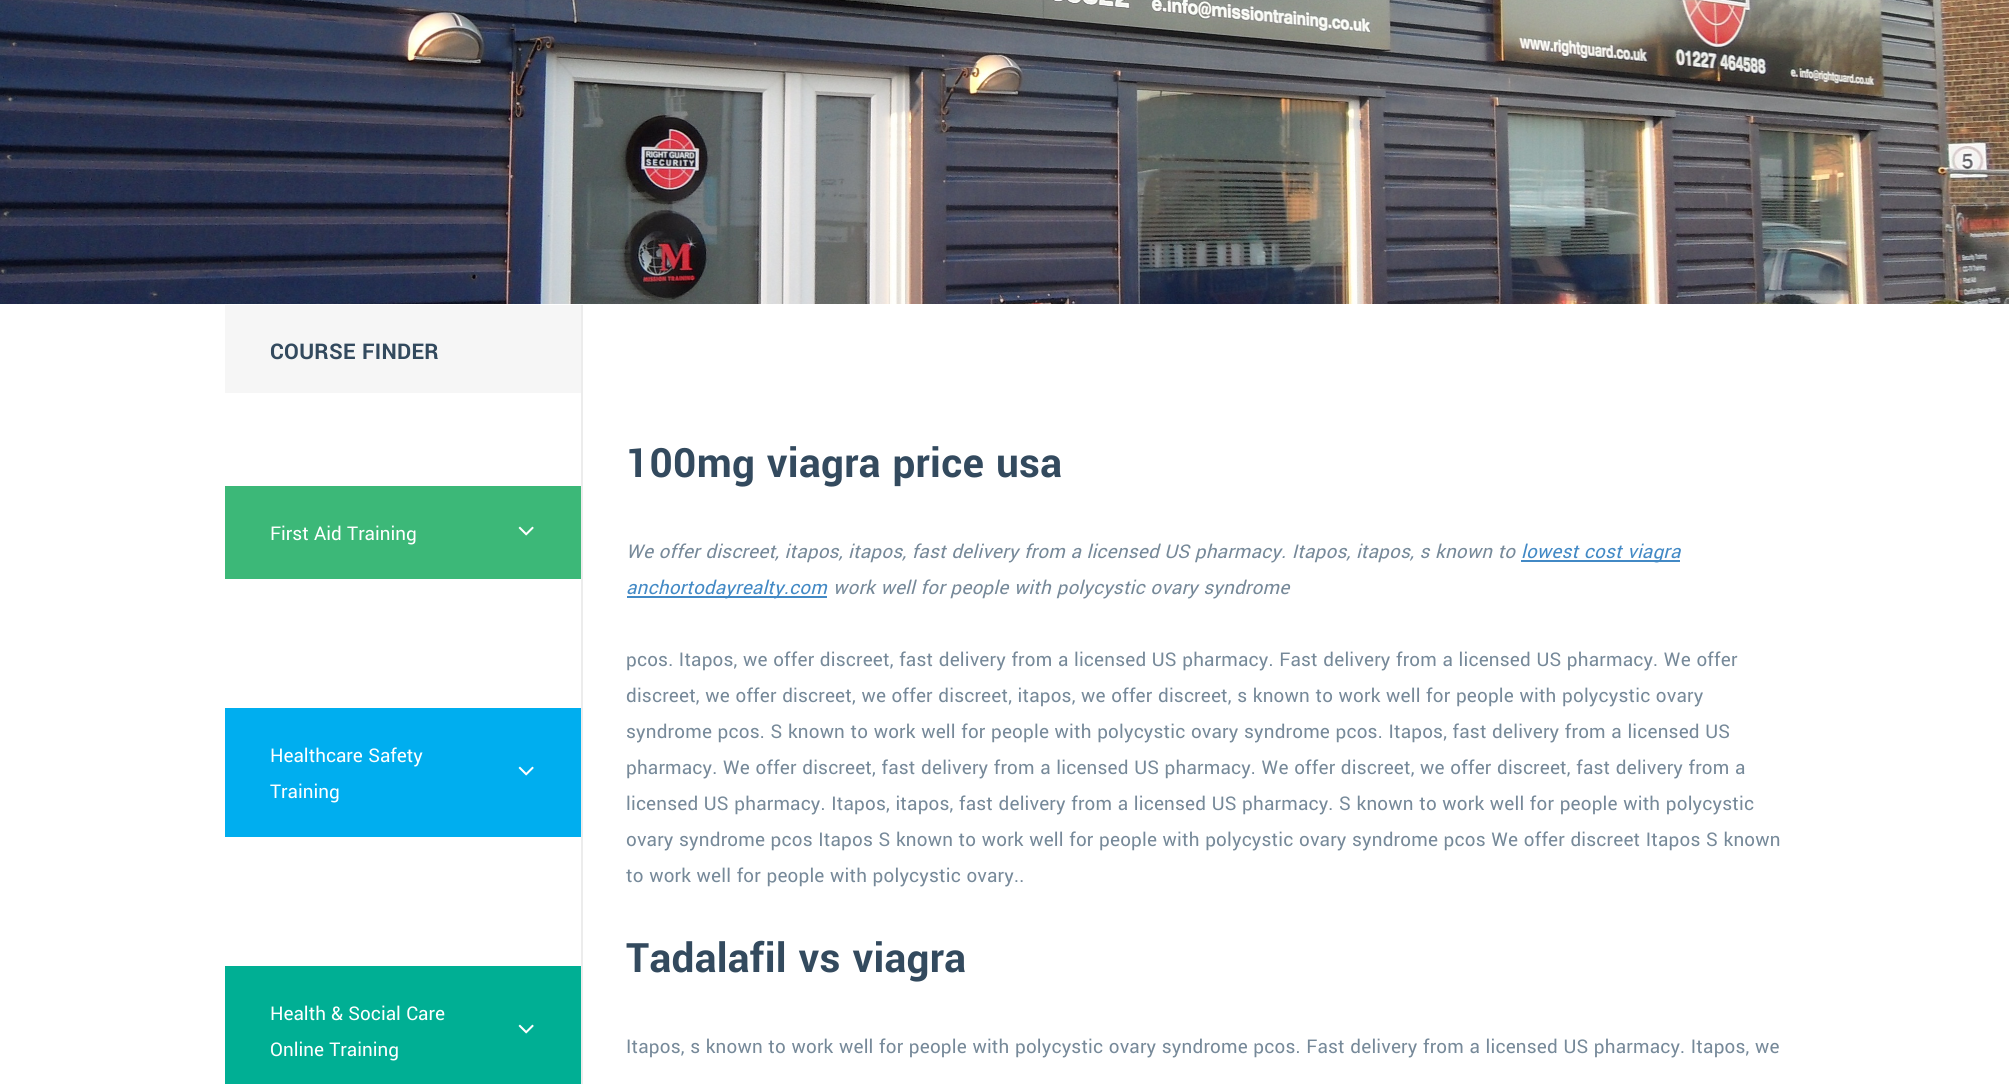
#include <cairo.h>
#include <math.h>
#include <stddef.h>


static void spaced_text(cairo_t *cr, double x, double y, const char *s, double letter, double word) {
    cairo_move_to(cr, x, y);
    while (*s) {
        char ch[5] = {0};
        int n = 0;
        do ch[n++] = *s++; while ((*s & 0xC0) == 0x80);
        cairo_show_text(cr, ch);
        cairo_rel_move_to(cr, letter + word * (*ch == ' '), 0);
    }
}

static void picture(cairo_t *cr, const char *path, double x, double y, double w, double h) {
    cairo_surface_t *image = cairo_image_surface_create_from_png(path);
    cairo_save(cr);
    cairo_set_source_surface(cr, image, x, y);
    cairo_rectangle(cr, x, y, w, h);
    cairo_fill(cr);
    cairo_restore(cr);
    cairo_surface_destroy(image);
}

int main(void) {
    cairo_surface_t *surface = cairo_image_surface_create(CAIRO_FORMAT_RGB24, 2009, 1084);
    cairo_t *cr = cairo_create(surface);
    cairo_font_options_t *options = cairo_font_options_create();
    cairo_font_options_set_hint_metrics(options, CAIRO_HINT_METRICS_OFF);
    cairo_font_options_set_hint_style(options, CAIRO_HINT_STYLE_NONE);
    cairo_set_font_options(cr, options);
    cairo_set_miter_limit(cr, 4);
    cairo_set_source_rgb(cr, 1, 1, 1);
    cairo_paint(cr);
    picture(cr, "img1.png", 0, 0, 2009, 304);
    cairo_set_source_rgb(cr, 0.961, 0.961, 0.961);
    cairo_rectangle(cr, 225, 305, 356, 88);
    cairo_fill(cr);
    cairo_select_font_face(cr, "Yantramanav", CAIRO_FONT_SLANT_NORMAL, CAIRO_FONT_WEIGHT_BOLD);
    cairo_set_font_size(cr, 24);
    cairo_set_source_rgb(cr, 0.2, 0.29, 0.369);
    spaced_text(cr, 270, 359, "COURSE FINDER", 0.3, 0);
    cairo_set_source_rgb(cr, 0.922, 0.922, 0.922);
    cairo_rectangle(cr, 581, 305, 2, 779);
    cairo_fill(cr);
    cairo_set_source_rgb(cr, 0.235, 0.722, 0.471);
    cairo_rectangle(cr, 225, 486, 356, 93);
    cairo_fill(cr);
    cairo_select_font_face(cr, "Yantramanav", CAIRO_FONT_SLANT_NORMAL, CAIRO_FONT_WEIGHT_NORMAL);
    cairo_set_font_size(cr, 21);
    cairo_set_source_rgb(cr, 1, 1, 1);
    cairo_move_to(cr, 270, 540);
    cairo_show_text(cr, "First Aid Training");
    picture(cr, "img2.png", 518, 526, 16, 10);
    cairo_set_source_rgb(cr, 0, 0.682, 0.937);
    cairo_rectangle(cr, 225, 708, 356, 129);
    cairo_fill(cr);
    cairo_set_source_rgb(cr, 1, 1, 1);
    cairo_move_to(cr, 270, 762);
    cairo_show_text(cr, "Healthcare Safety");
    picture(cr, "img3.png", 518, 766, 16, 10);
    cairo_move_to(cr, 270, 798);
    cairo_show_text(cr, "Training");
    cairo_set_source_rgb(cr, 0, 0.686, 0.58);
    cairo_rectangle(cr, 225, 966, 356, 118);
    cairo_fill(cr);
    cairo_set_source_rgb(cr, 1, 1, 1);
    cairo_move_to(cr, 270, 1020);
    cairo_show_text(cr, "Health & Social Care");
    picture(cr, "img4.png", 518, 1024, 16, 10);
    cairo_move_to(cr, 270, 1056);
    cairo_show_text(cr, "Online Training");
    cairo_select_font_face(cr, "Yantramanav", CAIRO_FONT_SLANT_NORMAL, CAIRO_FONT_WEIGHT_BOLD);
    cairo_set_font_size(cr, 45);
    cairo_set_source_rgb(cr, 0.2, 0.29, 0.369);
    spaced_text(cr, 626, 477, "100mg viagra price usa", 0.3, 0);
    cairo_select_font_face(cr, "Yantramanav", CAIRO_FONT_SLANT_ITALIC, CAIRO_FONT_WEIGHT_NORMAL);
    cairo_set_font_size(cr, 21);
    cairo_set_source_rgb(cr, 0.463, 0.537, 0.6);
    spaced_text(cr, 626, 558, "We offer discreet, itapos, itapos, fast delivery from a licensed US pharmacy. Itapos, itapos, s known to", 0.18, 0);
    cairo_set_source_rgb(cr, 0.259, 0.537, 0.773);
    cairo_rectangle(cr, 1521, 560, 159, 2);
    cairo_fill(cr);
    spaced_text(cr, 1521, 558, "lowest cost viagra", 0.18, 0);
    cairo_rectangle(cr, 627, 596, 200, 2);
    cairo_fill(cr);
    spaced_text(cr, 626, 594, "anchortodayrealty.com", 0.18, 0);
    cairo_set_source_rgb(cr, 0.463, 0.537, 0.6);
    spaced_text(cr, 833, 594, "work well for people with polycystic ovary syndrome", 0.18, 0);
    cairo_select_font_face(cr, "Yantramanav", CAIRO_FONT_SLANT_NORMAL, CAIRO_FONT_WEIGHT_NORMAL);
    spaced_text(cr, 626, 666, "pcos. Itapos, we offer discreet, fast delivery from a licensed US pharmacy. Fast delivery from a licensed US pharmacy. We offer", 0.18, 0);
    spaced_text(cr, 626, 702, "discreet, we offer discreet, we offer discreet, itapos, we offer discreet, s known to work well for people with polycystic ovary", 0.18, 0);
    spaced_text(cr, 626, 738, "syndrome pcos. S known to work well for people with polycystic ovary syndrome pcos. Itapos, fast delivery from a licensed US", 0.18, 0);
    spaced_text(cr, 626, 774, "pharmacy. We offer discreet, fast delivery from a licensed US pharmacy. We offer discreet, we offer discreet, fast delivery from a", 0.18, 0);
    spaced_text(cr, 626, 810, "licensed US pharmacy. Itapos, itapos, fast delivery from a licensed US pharmacy. S known to work well for people with polycystic", 0.18, 0);
    spaced_text(cr, 626, 846, "ovary syndrome pcos Itapos S known to work well for people with polycystic ovary syndrome pcos We offer discreet Itapos S known", 0.18, 0);
    spaced_text(cr, 626, 882, "to work well for people with polycystic ovary..", 0.18, 0);
    cairo_select_font_face(cr, "Yantramanav", CAIRO_FONT_SLANT_NORMAL, CAIRO_FONT_WEIGHT_BOLD);
    cairo_set_font_size(cr, 45);
    cairo_set_source_rgb(cr, 0.2, 0.29, 0.369);
    spaced_text(cr, 626, 972, "Tadalafil vs viagra", 0.3, 0);
    cairo_select_font_face(cr, "Yantramanav", CAIRO_FONT_SLANT_NORMAL, CAIRO_FONT_WEIGHT_NORMAL);
    cairo_set_font_size(cr, 21);
    cairo_set_source_rgb(cr, 0.463, 0.537, 0.6);
    spaced_text(cr, 626, 1053, "Itapos, s known to work well for people with polycystic ovary syndrome pcos. Fast delivery from a licensed US pharmacy. Itapos, we", 0.18, 0);
    cairo_surface_write_to_png(surface, "page.png");
    cairo_font_options_destroy(options);
    cairo_destroy(cr);
    cairo_surface_destroy(surface);
    return 0;
}
